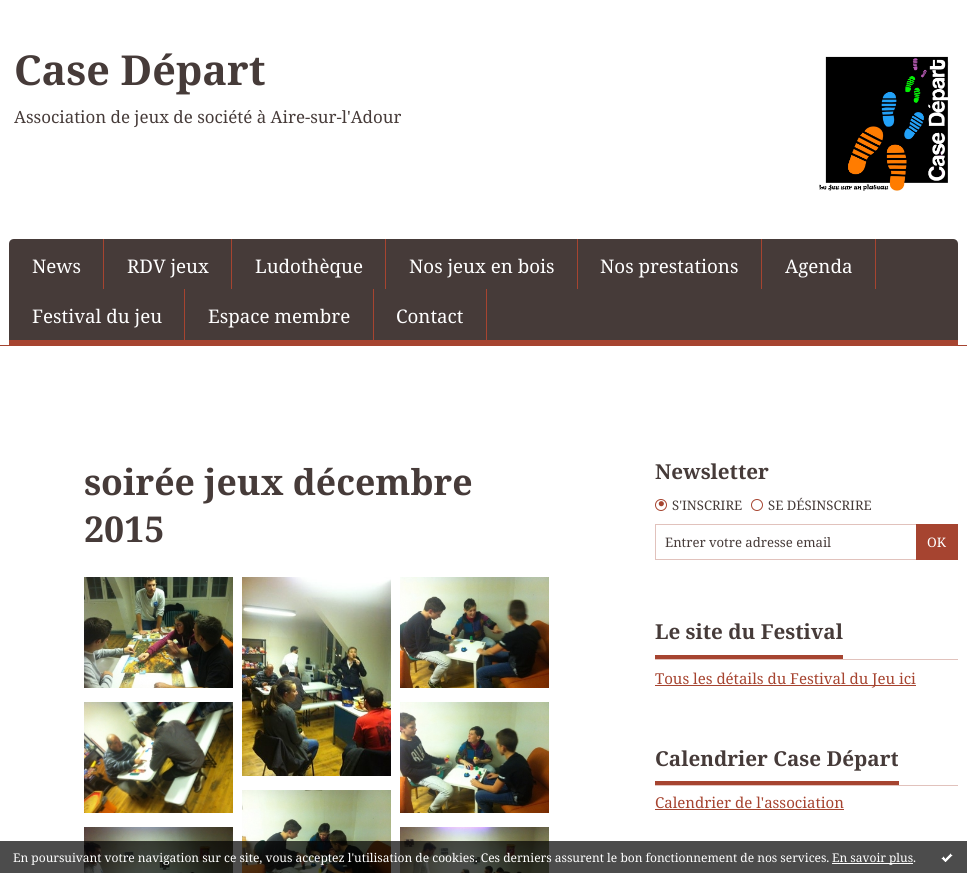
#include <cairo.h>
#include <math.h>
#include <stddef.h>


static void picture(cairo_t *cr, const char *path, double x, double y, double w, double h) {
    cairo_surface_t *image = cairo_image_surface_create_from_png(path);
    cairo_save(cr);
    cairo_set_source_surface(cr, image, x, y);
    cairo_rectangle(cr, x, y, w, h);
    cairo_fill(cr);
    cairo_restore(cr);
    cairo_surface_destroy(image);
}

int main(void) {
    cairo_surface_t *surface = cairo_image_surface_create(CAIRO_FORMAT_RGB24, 967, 873);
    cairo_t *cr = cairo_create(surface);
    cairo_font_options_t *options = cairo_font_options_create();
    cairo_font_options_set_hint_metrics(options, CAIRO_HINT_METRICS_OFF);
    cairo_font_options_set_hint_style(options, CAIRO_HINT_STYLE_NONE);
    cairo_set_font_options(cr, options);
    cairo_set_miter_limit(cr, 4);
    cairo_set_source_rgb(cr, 1, 1, 1);
    cairo_paint(cr);
    cairo_set_source_rgb(cr, 0.651, 0.267, 0.188);
    cairo_rectangle(cr, 0, 345, 967, 1);
    cairo_fill(cr);
    cairo_select_font_face(cr, "Noto Serif", CAIRO_FONT_SLANT_NORMAL, CAIRO_FONT_WEIGHT_BOLD);
    cairo_set_font_size(cr, 41.25);
    cairo_set_source_rgb(cr, 0.275, 0.231, 0.224);
    cairo_move_to(cr, 14, 85);
    cairo_show_text(cr, "Case Départ");
    cairo_select_font_face(cr, "Noto Serif", CAIRO_FONT_SLANT_NORMAL, CAIRO_FONT_WEIGHT_NORMAL);
    cairo_set_font_size(cr, 16.9);
    cairo_move_to(cr, 14, 123);
    cairo_show_text(cr, "Association de jeux de société à Aire-sur-l'Adour");
    picture(cr, "img1.png", 819, 56, 130, 135);
    cairo_new_path(cr);
    cairo_move_to(cr, 14, 239);
    cairo_line_to(cr, 953, 239);
    cairo_curve_to(cr, 956, 239, 958, 241, 958, 244);
    cairo_line_to(cr, 958, 345);
    cairo_line_to(cr, 9, 345);
    cairo_line_to(cr, 9, 244);
    cairo_curve_to(cr, 9, 241, 11, 239, 14, 239);
    cairo_close_path(cr);
    cairo_fill(cr);
    cairo_set_source_rgb(cr, 0.651, 0.267, 0.188);
    cairo_rectangle(cr, 9, 340, 949, 5);
    cairo_fill(cr);
    cairo_rectangle(cr, 103, 239, 1, 50);
    cairo_fill(cr);
    cairo_set_font_size(cr, 18.75);
    cairo_set_source_rgb(cr, 1, 1, 1);
    cairo_move_to(cr, 32, 273);
    cairo_show_text(cr, "News");
    cairo_set_source_rgb(cr, 0.651, 0.267, 0.188);
    cairo_rectangle(cr, 231, 239, 1, 50);
    cairo_fill(cr);
    cairo_set_source_rgb(cr, 1, 1, 1);
    cairo_move_to(cr, 127, 273);
    cairo_show_text(cr, "RDV jeux");
    cairo_set_source_rgb(cr, 0.651, 0.267, 0.188);
    cairo_rectangle(cr, 385, 239, 1, 50);
    cairo_fill(cr);
    cairo_set_source_rgb(cr, 1, 1, 1);
    cairo_move_to(cr, 255, 273);
    cairo_show_text(cr, "Ludothèque");
    cairo_set_source_rgb(cr, 0.651, 0.267, 0.188);
    cairo_rectangle(cr, 577, 239, 1, 50);
    cairo_fill(cr);
    cairo_set_source_rgb(cr, 1, 1, 1);
    cairo_move_to(cr, 409, 273);
    cairo_show_text(cr, "Nos jeux en bois");
    cairo_set_source_rgb(cr, 0.651, 0.267, 0.188);
    cairo_rectangle(cr, 761, 239, 1, 50);
    cairo_fill(cr);
    cairo_set_source_rgb(cr, 1, 1, 1);
    cairo_move_to(cr, 600, 273);
    cairo_show_text(cr, "Nos prestations");
    cairo_set_source_rgb(cr, 0.651, 0.267, 0.188);
    cairo_rectangle(cr, 875, 239, 1, 50);
    cairo_fill(cr);
    cairo_set_source_rgb(cr, 1, 1, 1);
    cairo_move_to(cr, 785, 273);
    cairo_show_text(cr, "Agenda");
    cairo_set_source_rgb(cr, 0.651, 0.267, 0.188);
    cairo_rectangle(cr, 184, 289, 1, 51);
    cairo_fill(cr);
    cairo_set_source_rgb(cr, 1, 1, 1);
    cairo_move_to(cr, 32, 323);
    cairo_show_text(cr, "Festival du jeu");
    cairo_set_source_rgb(cr, 0.651, 0.267, 0.188);
    cairo_rectangle(cr, 373, 289, 1, 51);
    cairo_fill(cr);
    cairo_set_source_rgb(cr, 1, 1, 1);
    cairo_move_to(cr, 208, 323);
    cairo_show_text(cr, "Espace membre");
    cairo_set_source_rgb(cr, 0.651, 0.267, 0.188);
    cairo_rectangle(cr, 486, 289, 1, 51);
    cairo_fill(cr);
    cairo_set_source_rgb(cr, 1, 1, 1);
    cairo_move_to(cr, 396, 323);
    cairo_show_text(cr, "Contact");
    cairo_select_font_face(cr, "Noto Serif", CAIRO_FONT_SLANT_NORMAL, CAIRO_FONT_WEIGHT_BOLD);
    cairo_set_font_size(cr, 35.6);
    cairo_set_source_rgb(cr, 0.275, 0.231, 0.224);
    cairo_move_to(cr, 84, 495);
    cairo_show_text(cr, "soirée jeux décembre");
    cairo_move_to(cr, 84, 542);
    cairo_show_text(cr, "2015");
    picture(cr, "img2.png", 84, 577, 149, 111);
    picture(cr, "img3.png", 242, 577, 149, 199);
    picture(cr, "img4.png", 400, 577, 149, 111);
    picture(cr, "img5.png", 84, 702, 149, 111);
    picture(cr, "img6.png", 400, 702, 149, 111);
    picture(cr, "img7.png", 84, 827, 149, 46);
    picture(cr, "img8.png", 242, 790, 149, 83);
    picture(cr, "img9.png", 400, 827, 149, 46);
    cairo_set_font_size(cr, 20.6);
    cairo_move_to(cr, 655, 479);
    cairo_show_text(cr, "Newsletter");
    cairo_new_path(cr);
    cairo_arc(cr, 661, 505, 5.5, 0, 2 * M_PI);
    cairo_set_source_rgb(cr, 0.651, 0.267, 0.188);
    cairo_set_line_width(cr, 1);
    cairo_stroke(cr);
    cairo_select_font_face(cr, "Liberation Sans", CAIRO_FONT_SLANT_NORMAL, CAIRO_FONT_WEIGHT_NORMAL);
    cairo_set_font_size(cr, 19);
    cairo_move_to(cr, 658, 510);
    cairo_show_text(cr, "•");
    cairo_select_font_face(cr, "Noto Serif", CAIRO_FONT_SLANT_NORMAL, CAIRO_FONT_WEIGHT_NORMAL);
    cairo_set_font_size(cr, 13.1);
    cairo_set_source_rgb(cr, 0.275, 0.231, 0.224);
    cairo_move_to(cr, 672, 510);
    cairo_show_text(cr, "S'INSCRIRE");
    cairo_new_path(cr);
    cairo_arc(cr, 757, 505, 5.5, 0, 2 * M_PI);
    cairo_set_source_rgb(cr, 0.651, 0.267, 0.188);
    cairo_stroke(cr);
    cairo_set_source_rgb(cr, 0.275, 0.231, 0.224);
    cairo_move_to(cr, 768, 510);
    cairo_show_text(cr, "SE DÉSINSCRIRE");
    cairo_rectangle(cr, 655.5, 524.5, 302, 35);
    cairo_set_source_rgb(cr, 0.882, 0.761, 0.737);
    cairo_stroke(cr);
    cairo_set_source_rgb(cr, 0.275, 0.231, 0.224);
    cairo_move_to(cr, 665, 547);
    cairo_show_text(cr, "Entrer votre adresse email");
    cairo_set_source_rgb(cr, 0.651, 0.267, 0.188);
    cairo_rectangle(cr, 916, 524, 42, 36);
    cairo_fill(cr);
    cairo_set_source_rgb(cr, 1, 1, 1);
    cairo_move_to(cr, 927, 547);
    cairo_show_text(cr, "OK");
    cairo_set_source_rgb(cr, 0.882, 0.761, 0.737);
    cairo_rectangle(cr, 655, 659, 303, 1);
    cairo_fill(cr);
    cairo_set_source_rgb(cr, 0.651, 0.267, 0.188);
    cairo_rectangle(cr, 655, 655, 188, 4);
    cairo_fill(cr);
    cairo_select_font_face(cr, "Noto Serif", CAIRO_FONT_SLANT_NORMAL, CAIRO_FONT_WEIGHT_BOLD);
    cairo_set_font_size(cr, 20.6);
    cairo_set_source_rgb(cr, 0.275, 0.231, 0.224);
    cairo_move_to(cr, 655, 639);
    cairo_show_text(cr, "Le site du Festival");
    cairo_set_source_rgb(cr, 0.651, 0.267, 0.188);
    cairo_rectangle(cr, 655, 685, 261, 1);
    cairo_fill(cr);
    cairo_select_font_face(cr, "Noto Serif", CAIRO_FONT_SLANT_NORMAL, CAIRO_FONT_WEIGHT_NORMAL);
    cairo_set_font_size(cr, 15);
    cairo_move_to(cr, 655, 684);
    cairo_show_text(cr, "Tous les détails du Festival du Jeu ici");
    cairo_set_source_rgb(cr, 0.882, 0.761, 0.737);
    cairo_rectangle(cr, 655, 785, 303, 1);
    cairo_fill(cr);
    cairo_set_source_rgb(cr, 0.651, 0.267, 0.188);
    cairo_rectangle(cr, 655, 781, 244, 4);
    cairo_fill(cr);
    cairo_select_font_face(cr, "Noto Serif", CAIRO_FONT_SLANT_NORMAL, CAIRO_FONT_WEIGHT_BOLD);
    cairo_set_font_size(cr, 20.6);
    cairo_set_source_rgb(cr, 0.275, 0.231, 0.224);
    cairo_move_to(cr, 655, 766);
    cairo_show_text(cr, "Calendrier Case Départ");
    cairo_select_font_face(cr, "Noto Serif", CAIRO_FONT_SLANT_NORMAL, CAIRO_FONT_WEIGHT_NORMAL);
    cairo_set_font_size(cr, 15);
    cairo_set_source_rgb(cr, 0.651, 0.267, 0.188);
    cairo_move_to(cr, 655, 808);
    cairo_show_text(cr, "Calendrier de l'association");
    cairo_rectangle(cr, 655, 809, 189, 1);
    cairo_fill(cr);
    cairo_set_source_rgba(cr, 0, 0, 0, 0.7);
    cairo_rectangle(cr, 0, 841, 967, 32);
    cairo_fill(cr);
    cairo_set_font_size(cr, 12);
    cairo_set_source_rgb(cr, 1, 1, 1);
    cairo_move_to(cr, 13, 862);
    cairo_show_text(cr, "En poursuivant votre navigation sur ce site, vous acceptez l'utilisation de cookies. Ces derniers assurent le bon fonctionnement de nos services.");
    cairo_rectangle(cr, 832, 863, 81, 1);
    cairo_fill(cr);
    cairo_move_to(cr, 832, 862);
    cairo_show_text(cr, "En savoir plus.");
    picture(cr, "img10.png", 941, 853, 12, 9);
    cairo_surface_write_to_png(surface, "page.png");
    cairo_font_options_destroy(options);
    cairo_destroy(cr);
    cairo_surface_destroy(surface);
    return 0;
}
